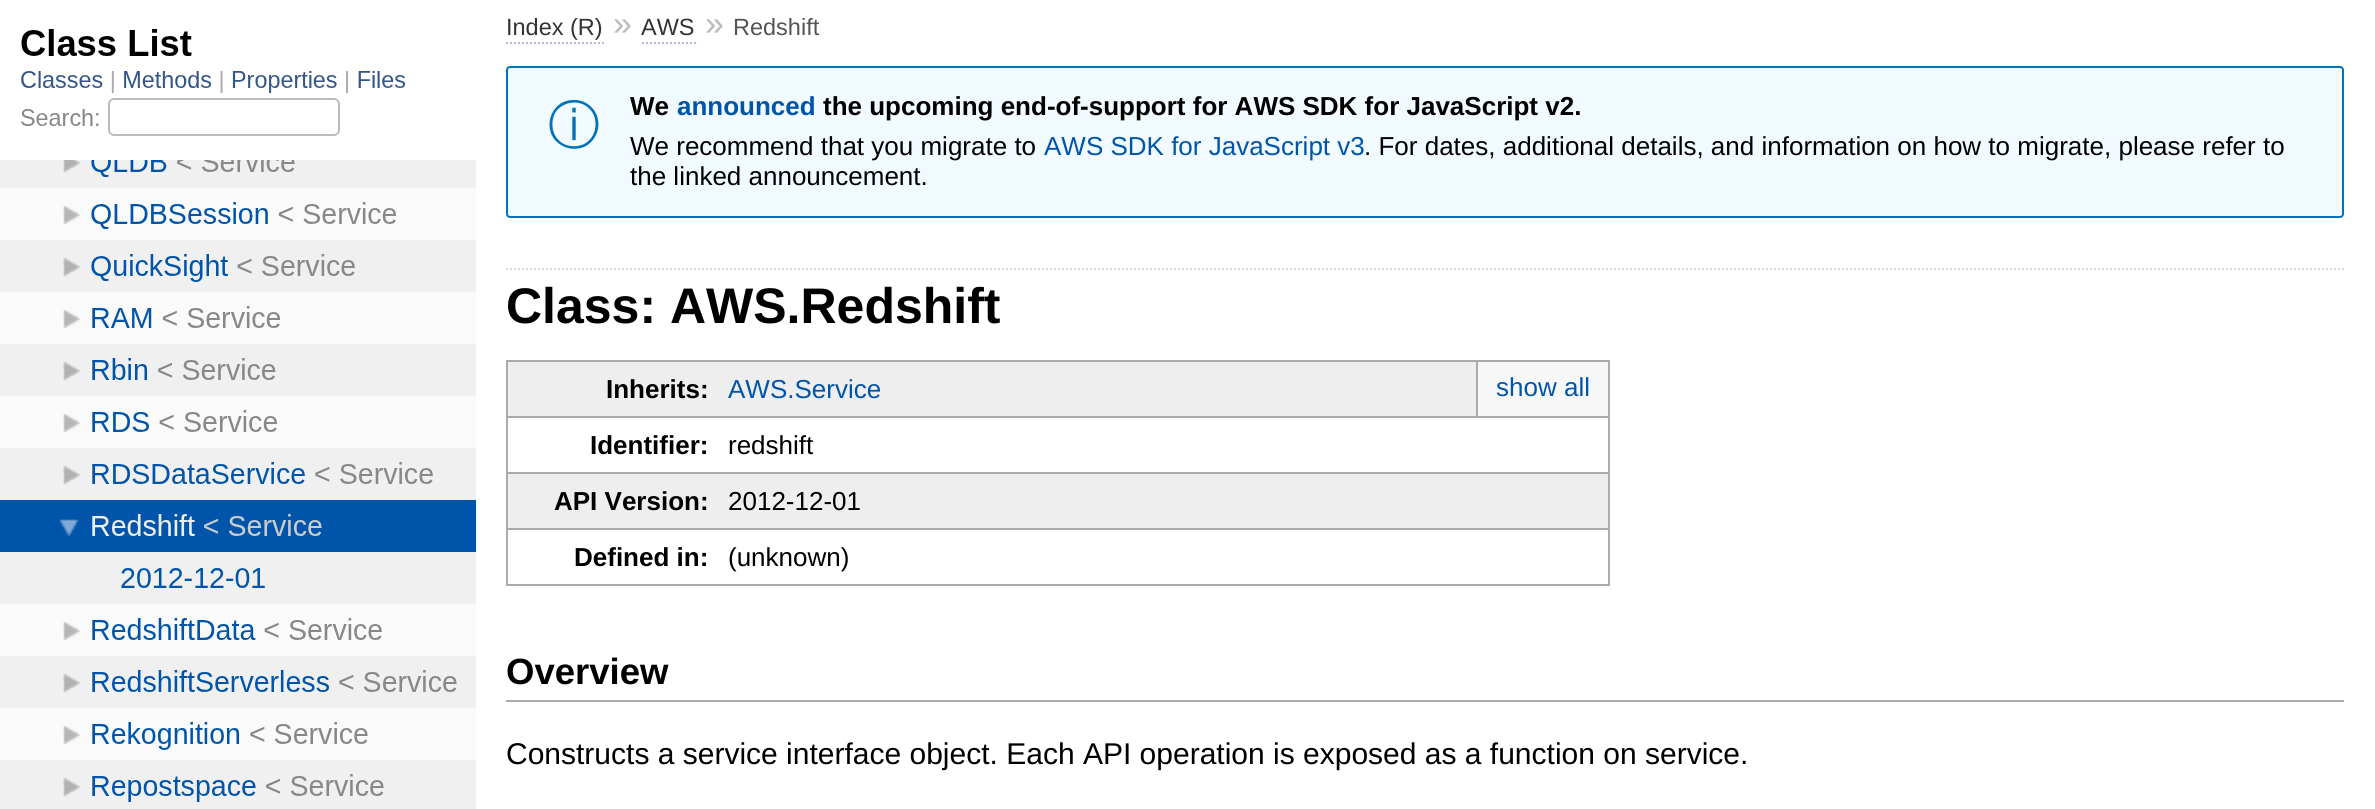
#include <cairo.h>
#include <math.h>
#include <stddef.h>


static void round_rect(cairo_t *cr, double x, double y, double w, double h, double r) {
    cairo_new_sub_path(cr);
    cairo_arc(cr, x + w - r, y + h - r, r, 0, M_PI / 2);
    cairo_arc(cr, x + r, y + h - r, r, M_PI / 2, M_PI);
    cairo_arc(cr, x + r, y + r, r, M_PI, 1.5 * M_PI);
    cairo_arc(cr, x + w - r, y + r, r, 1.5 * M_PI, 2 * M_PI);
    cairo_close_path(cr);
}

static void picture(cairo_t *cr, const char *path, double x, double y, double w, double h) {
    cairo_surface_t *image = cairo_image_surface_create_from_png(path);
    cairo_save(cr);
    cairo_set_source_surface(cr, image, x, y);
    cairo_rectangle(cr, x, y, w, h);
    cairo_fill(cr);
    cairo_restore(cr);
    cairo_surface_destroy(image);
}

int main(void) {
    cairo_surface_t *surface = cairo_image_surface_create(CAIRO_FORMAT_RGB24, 2375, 809);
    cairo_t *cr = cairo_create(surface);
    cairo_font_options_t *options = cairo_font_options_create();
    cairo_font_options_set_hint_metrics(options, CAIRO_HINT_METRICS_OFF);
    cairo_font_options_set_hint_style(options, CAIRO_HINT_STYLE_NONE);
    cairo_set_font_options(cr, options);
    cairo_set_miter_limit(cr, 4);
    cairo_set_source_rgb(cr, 1, 1, 1);
    cairo_paint(cr);
    picture(cr, "img1.png", 0, 29, 476, 780);
    cairo_select_font_face(cr, "Liberation Sans", CAIRO_FONT_SLANT_NORMAL, CAIRO_FONT_WEIGHT_NORMAL);
    cairo_set_font_size(cr, 23.5);
    cairo_set_source_rgb(cr, 0.2, 0.2, 0.2);
    cairo_move_to(cr, 506, 35);
    cairo_show_text(cr, "Index (R)");
    cairo_new_path(cr);
    cairo_move_to(cr, 506, 43);
    cairo_line_to(cr, 604, 43);
    cairo_set_source_rgb(cr, 0.733, 0.733, 0.867);
    cairo_set_dash(cr, (double[]){2, 2}, 2, 0);
    cairo_stroke(cr);
    cairo_set_font_size(cr, 34);
    cairo_set_source_rgb(cr, 0.733, 0.733, 0.733);
    cairo_move_to(cr, 613, 35);
    cairo_show_text(cr, "»");
    cairo_set_font_size(cr, 23.5);
    cairo_set_source_rgb(cr, 0.2, 0.2, 0.2);
    cairo_move_to(cr, 641, 35);
    cairo_show_text(cr, "AWS");
    cairo_new_path(cr);
    cairo_move_to(cr, 642, 43);
    cairo_line_to(cr, 696, 43);
    cairo_set_source_rgb(cr, 0.733, 0.733, 0.867);
    cairo_stroke(cr);
    cairo_set_font_size(cr, 34);
    cairo_set_source_rgb(cr, 0.733, 0.733, 0.733);
    cairo_move_to(cr, 705, 35);
    cairo_show_text(cr, "»");
    cairo_set_font_size(cr, 23.5);
    cairo_set_source_rgb(cr, 0.333, 0.333, 0.333);
    cairo_move_to(cr, 733, 35);
    cairo_show_text(cr, "Redshift");
    cairo_set_source_rgb(cr, 0.945, 0.98, 1);
    round_rect(cr, 507, 67, 1836, 150, 3);
    cairo_fill_preserve(cr);
    cairo_set_source_rgb(cr, 0, 0.451, 0.733);
    cairo_set_dash(cr, NULL, 0, 0);
    cairo_stroke(cr);
    cairo_select_font_face(cr, "WenQuanYi Zen Hei Medium", CAIRO_FONT_SLANT_NORMAL, CAIRO_FONT_WEIGHT_NORMAL);
    cairo_set_font_size(cr, 52);
    cairo_move_to(cr, 548, 143);
    cairo_show_text(cr, "ⓘ");
    cairo_select_font_face(cr, "Liberation Sans", CAIRO_FONT_SLANT_NORMAL, CAIRO_FONT_WEIGHT_BOLD);
    cairo_set_font_size(cr, 26);
    cairo_set_source_rgb(cr, 0, 0, 0);
    cairo_move_to(cr, 630, 115);
    cairo_show_text(cr, "We");
    cairo_set_source_rgb(cr, 0, 0.333, 0.667);
    cairo_move_to(cr, 677, 115);
    cairo_show_text(cr, "announced");
    cairo_set_source_rgb(cr, 0, 0, 0);
    cairo_move_to(cr, 823, 115);
    cairo_show_text(cr, "the upcoming end-of-support for AWS SDK for JavaScript v2.");
    cairo_select_font_face(cr, "Liberation Sans", CAIRO_FONT_SLANT_NORMAL, CAIRO_FONT_WEIGHT_NORMAL);
    cairo_move_to(cr, 630, 155);
    cairo_show_text(cr, "We recommend that you migrate to");
    cairo_set_source_rgb(cr, 0, 0.333, 0.667);
    cairo_move_to(cr, 1044, 155);
    cairo_show_text(cr, "AWS SDK for JavaScript v3");
    cairo_set_source_rgb(cr, 0, 0, 0);
    cairo_move_to(cr, 1364, 155);
    cairo_show_text(cr, ". For dates, additional details, and information on how to migrate, please refer to");
    cairo_move_to(cr, 630, 185);
    cairo_show_text(cr, "the linked announcement.");
    cairo_new_path(cr);
    cairo_move_to(cr, 506, 269);
    cairo_line_to(cr, 2344, 269);
    cairo_set_source_rgb(cr, 0.835, 0.835, 0.835);
    cairo_set_dash(cr, (double[]){2, 2}, 2, 0);
    cairo_stroke(cr);
    cairo_select_font_face(cr, "Liberation Sans", CAIRO_FONT_SLANT_NORMAL, CAIRO_FONT_WEIGHT_BOLD);
    cairo_set_font_size(cr, 50);
    cairo_set_source_rgb(cr, 0, 0, 0);
    cairo_move_to(cr, 506, 323);
    cairo_show_text(cr, "Class: AWS.Redshift");
    cairo_set_source_rgb(cr, 0.933, 0.933, 0.933);
    cairo_rectangle(cr, 508, 362, 968, 54);
    cairo_fill(cr);
    cairo_set_source_rgb(cr, 0.667, 0.667, 0.667);
    cairo_rectangle(cr, 506, 360, 1104, 2);
    cairo_fill(cr);
    cairo_rectangle(cr, 506, 360, 2, 56);
    cairo_fill(cr);
    cairo_set_font_size(cr, 26);
    cairo_set_source_rgb(cr, 0, 0, 0);
    cairo_move_to(cr, 606, 398);
    cairo_show_text(cr, "Inherits:");
    cairo_set_source_rgb(cr, 0.667, 0.667, 0.667);
    cairo_rectangle(cr, 506, 416, 1104, 2);
    cairo_fill(cr);
    cairo_rectangle(cr, 506, 472, 1104, 2);
    cairo_fill(cr);
    cairo_rectangle(cr, 506, 528, 1104, 2);
    cairo_fill(cr);
    cairo_rectangle(cr, 1608, 360, 2, 226);
    cairo_fill(cr);
    cairo_select_font_face(cr, "Liberation Sans", CAIRO_FONT_SLANT_NORMAL, CAIRO_FONT_WEIGHT_NORMAL);
    cairo_set_source_rgb(cr, 0, 0.333, 0.667);
    cairo_move_to(cr, 728, 398);
    cairo_show_text(cr, "AWS.Service");
    cairo_set_source_rgb(cr, 0.965, 0.965, 0.965);
    cairo_rectangle(cr, 1478, 362, 130, 54);
    cairo_fill(cr);
    cairo_set_source_rgb(cr, 0.667, 0.667, 0.667);
    cairo_rectangle(cr, 1476, 362, 2, 54);
    cairo_fill(cr);
    cairo_set_source_rgb(cr, 0, 0.333, 0.667);
    cairo_move_to(cr, 1496, 396);
    cairo_show_text(cr, "show all");
    cairo_set_source_rgb(cr, 0.667, 0.667, 0.667);
    cairo_rectangle(cr, 506, 416, 2, 56);
    cairo_fill(cr);
    cairo_select_font_face(cr, "Liberation Sans", CAIRO_FONT_SLANT_NORMAL, CAIRO_FONT_WEIGHT_BOLD);
    cairo_set_source_rgb(cr, 0, 0, 0);
    cairo_move_to(cr, 590, 454);
    cairo_show_text(cr, "Identifier:");
    cairo_select_font_face(cr, "Liberation Sans", CAIRO_FONT_SLANT_NORMAL, CAIRO_FONT_WEIGHT_NORMAL);
    cairo_move_to(cr, 728, 454);
    cairo_show_text(cr, "redshift");
    cairo_set_source_rgb(cr, 0.933, 0.933, 0.933);
    cairo_rectangle(cr, 508, 474, 1100, 54);
    cairo_fill(cr);
    cairo_set_source_rgb(cr, 0.667, 0.667, 0.667);
    cairo_rectangle(cr, 506, 472, 2, 56);
    cairo_fill(cr);
    cairo_select_font_face(cr, "Liberation Sans", CAIRO_FONT_SLANT_NORMAL, CAIRO_FONT_WEIGHT_BOLD);
    cairo_set_source_rgb(cr, 0, 0, 0);
    cairo_move_to(cr, 554, 510);
    cairo_show_text(cr, "API Version:");
    cairo_select_font_face(cr, "Liberation Sans", CAIRO_FONT_SLANT_NORMAL, CAIRO_FONT_WEIGHT_NORMAL);
    cairo_move_to(cr, 728, 510);
    cairo_show_text(cr, "2012-12-01");
    cairo_set_source_rgb(cr, 0.667, 0.667, 0.667);
    cairo_rectangle(cr, 506, 584, 222, 2);
    cairo_fill(cr);
    cairo_rectangle(cr, 506, 528, 2, 58);
    cairo_fill(cr);
    cairo_select_font_face(cr, "Liberation Sans", CAIRO_FONT_SLANT_NORMAL, CAIRO_FONT_WEIGHT_BOLD);
    cairo_set_source_rgb(cr, 0, 0, 0);
    cairo_move_to(cr, 574, 566);
    cairo_show_text(cr, "Defined in:");
    cairo_set_source_rgb(cr, 0.667, 0.667, 0.667);
    cairo_rectangle(cr, 728, 584, 882, 2);
    cairo_fill(cr);
    cairo_select_font_face(cr, "Liberation Sans", CAIRO_FONT_SLANT_NORMAL, CAIRO_FONT_WEIGHT_NORMAL);
    cairo_set_source_rgb(cr, 0, 0, 0);
    cairo_move_to(cr, 728, 566);
    cairo_show_text(cr, "(unknown)");
    cairo_set_source_rgb(cr, 0.667, 0.667, 0.667);
    cairo_rectangle(cr, 506, 700, 1838, 2);
    cairo_fill(cr);
    cairo_select_font_face(cr, "Liberation Sans", CAIRO_FONT_SLANT_NORMAL, CAIRO_FONT_WEIGHT_BOLD);
    cairo_set_font_size(cr, 36.5);
    cairo_set_source_rgb(cr, 0, 0, 0);
    cairo_move_to(cr, 506, 684);
    cairo_show_text(cr, "Overview");
    cairo_select_font_face(cr, "Liberation Sans", CAIRO_FONT_SLANT_NORMAL, CAIRO_FONT_WEIGHT_NORMAL);
    cairo_set_font_size(cr, 30);
    cairo_move_to(cr, 506, 764);
    cairo_show_text(cr, "Constructs a service interface object. Each API operation is exposed as a function on service.");
    cairo_surface_write_to_png(surface, "page.png");
    cairo_font_options_destroy(options);
    cairo_destroy(cr);
    cairo_surface_destroy(surface);
    return 0;
}
